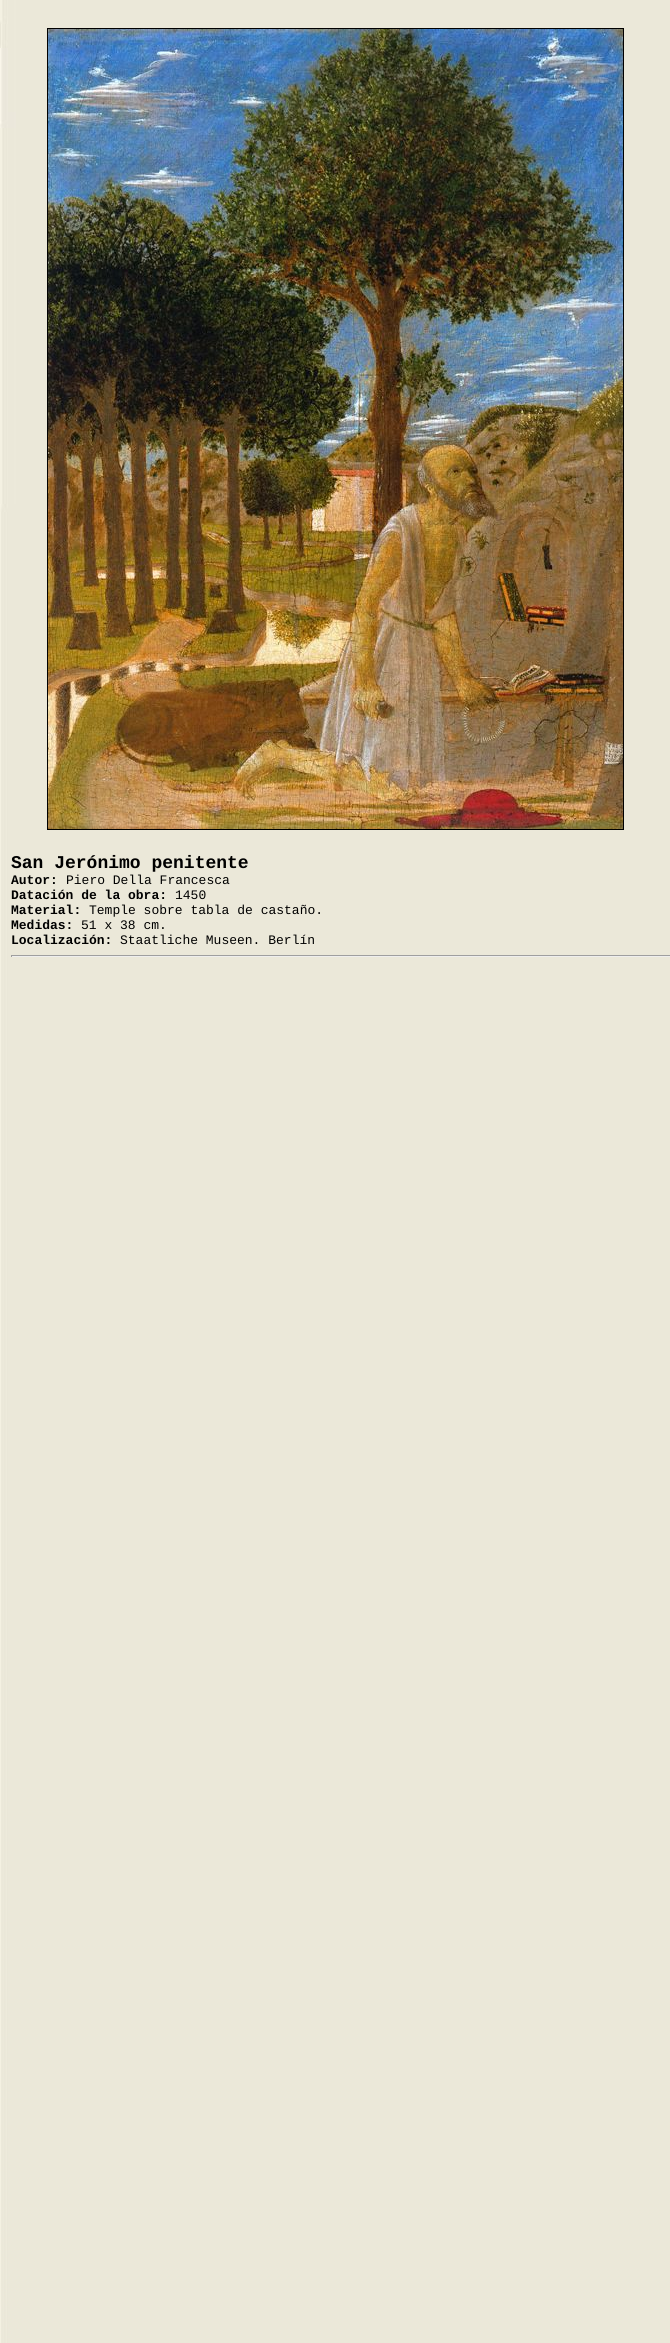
#include <cairo.h>
#include <math.h>
#include <stddef.h>


static void picture(cairo_t *cr, const char *path, double x, double y, double w, double h) {
    cairo_surface_t *image = cairo_image_surface_create_from_png(path);
    cairo_save(cr);
    cairo_set_source_surface(cr, image, x, y);
    cairo_rectangle(cr, x, y, w, h);
    cairo_fill(cr);
    cairo_restore(cr);
    cairo_surface_destroy(image);
}

int main(void) {
    cairo_surface_t *surface = cairo_image_surface_create(CAIRO_FORMAT_RGB24, 670, 2343);
    cairo_t *cr = cairo_create(surface);
    cairo_font_options_t *options = cairo_font_options_create();
    cairo_font_options_set_hint_metrics(options, CAIRO_HINT_METRICS_OFF);
    cairo_font_options_set_hint_style(options, CAIRO_HINT_STYLE_NONE);
    cairo_set_font_options(cr, options);
    cairo_set_miter_limit(cr, 4);
    cairo_set_source_rgb(cr, 1, 1, 1);
    cairo_paint(cr);
    picture(cr, "img1.png", 0, 0, 670, 2343);
    cairo_rectangle(cr, 47.5, 28.5, 576, 801);
    cairo_set_source_rgb(cr, 0, 0, 0);
    cairo_set_line_width(cr, 1);
    cairo_stroke(cr);
    picture(cr, "img2.png", 48, 29, 575, 800);
    cairo_select_font_face(cr, "Liberation Mono", CAIRO_FONT_SLANT_NORMAL, CAIRO_FONT_WEIGHT_BOLD);
    cairo_set_font_size(cr, 18);
    cairo_move_to(cr, 11, 868);
    cairo_show_text(cr, "San Jerónimo penitente");
    cairo_set_font_size(cr, 13);
    cairo_move_to(cr, 11, 884);
    cairo_show_text(cr, "Autor:");
    cairo_select_font_face(cr, "Liberation Mono", CAIRO_FONT_SLANT_NORMAL, CAIRO_FONT_WEIGHT_NORMAL);
    cairo_move_to(cr, 66, 884);
    cairo_show_text(cr, "Piero Della Francesca");
    cairo_select_font_face(cr, "Liberation Mono", CAIRO_FONT_SLANT_NORMAL, CAIRO_FONT_WEIGHT_BOLD);
    cairo_move_to(cr, 11, 899);
    cairo_show_text(cr, "Datación de la obra:");
    cairo_select_font_face(cr, "Liberation Mono", CAIRO_FONT_SLANT_NORMAL, CAIRO_FONT_WEIGHT_NORMAL);
    cairo_move_to(cr, 175, 899);
    cairo_show_text(cr, "1450");
    cairo_select_font_face(cr, "Liberation Mono", CAIRO_FONT_SLANT_NORMAL, CAIRO_FONT_WEIGHT_BOLD);
    cairo_move_to(cr, 11, 914);
    cairo_show_text(cr, "Material:");
    cairo_select_font_face(cr, "Liberation Mono", CAIRO_FONT_SLANT_NORMAL, CAIRO_FONT_WEIGHT_NORMAL);
    cairo_move_to(cr, 89, 914);
    cairo_show_text(cr, "Temple sobre tabla de castaño.");
    cairo_select_font_face(cr, "Liberation Mono", CAIRO_FONT_SLANT_NORMAL, CAIRO_FONT_WEIGHT_BOLD);
    cairo_move_to(cr, 11, 929);
    cairo_show_text(cr, "Medidas:");
    cairo_select_font_face(cr, "Liberation Mono", CAIRO_FONT_SLANT_NORMAL, CAIRO_FONT_WEIGHT_NORMAL);
    cairo_move_to(cr, 81, 929);
    cairo_show_text(cr, "51 x 38 cm.");
    cairo_select_font_face(cr, "Liberation Mono", CAIRO_FONT_SLANT_NORMAL, CAIRO_FONT_WEIGHT_BOLD);
    cairo_move_to(cr, 11, 944);
    cairo_show_text(cr, "Localización:");
    cairo_select_font_face(cr, "Liberation Mono", CAIRO_FONT_SLANT_NORMAL, CAIRO_FONT_WEIGHT_NORMAL);
    cairo_move_to(cr, 120, 944);
    cairo_show_text(cr, "Staatliche Museen. Berlín");
    cairo_set_source_rgb(cr, 0.624, 0.624, 0.624);
    cairo_rectangle(cr, 11, 955, 659, 1);
    cairo_fill(cr);
    cairo_set_source_rgb(cr, 0.933, 0.933, 0.933);
    cairo_rectangle(cr, 11, 956, 659, 1);
    cairo_fill(cr);
    cairo_set_source_rgb(cr, 0.624, 0.624, 0.624);
    cairo_rectangle(cr, 11, 955, 1, 2);
    cairo_fill(cr);
    cairo_surface_write_to_png(surface, "page.png");
    cairo_font_options_destroy(options);
    cairo_destroy(cr);
    cairo_surface_destroy(surface);
    return 0;
}
